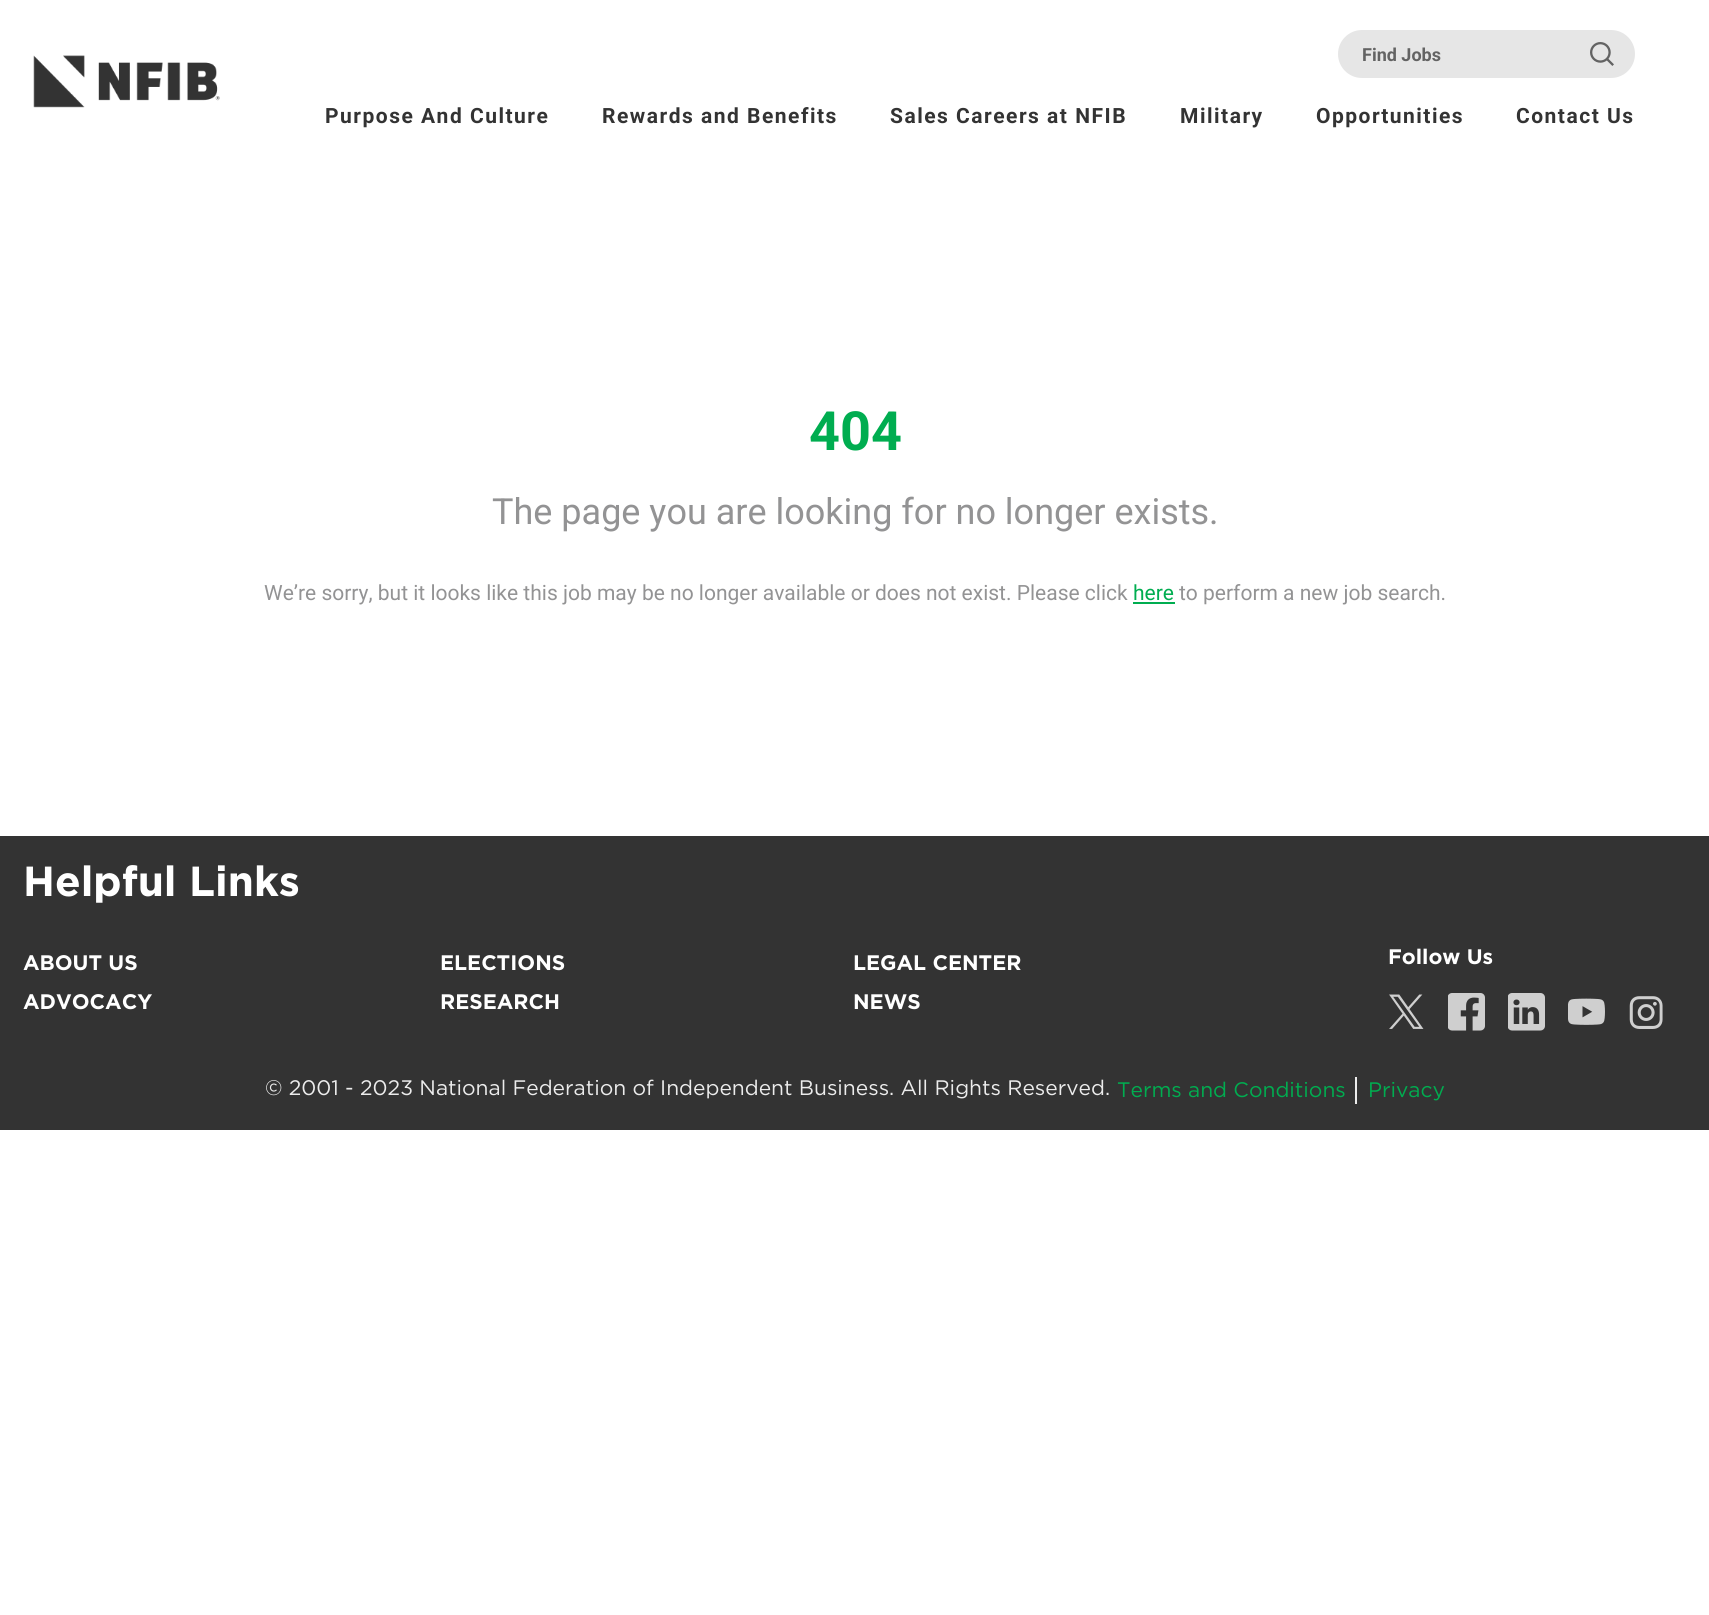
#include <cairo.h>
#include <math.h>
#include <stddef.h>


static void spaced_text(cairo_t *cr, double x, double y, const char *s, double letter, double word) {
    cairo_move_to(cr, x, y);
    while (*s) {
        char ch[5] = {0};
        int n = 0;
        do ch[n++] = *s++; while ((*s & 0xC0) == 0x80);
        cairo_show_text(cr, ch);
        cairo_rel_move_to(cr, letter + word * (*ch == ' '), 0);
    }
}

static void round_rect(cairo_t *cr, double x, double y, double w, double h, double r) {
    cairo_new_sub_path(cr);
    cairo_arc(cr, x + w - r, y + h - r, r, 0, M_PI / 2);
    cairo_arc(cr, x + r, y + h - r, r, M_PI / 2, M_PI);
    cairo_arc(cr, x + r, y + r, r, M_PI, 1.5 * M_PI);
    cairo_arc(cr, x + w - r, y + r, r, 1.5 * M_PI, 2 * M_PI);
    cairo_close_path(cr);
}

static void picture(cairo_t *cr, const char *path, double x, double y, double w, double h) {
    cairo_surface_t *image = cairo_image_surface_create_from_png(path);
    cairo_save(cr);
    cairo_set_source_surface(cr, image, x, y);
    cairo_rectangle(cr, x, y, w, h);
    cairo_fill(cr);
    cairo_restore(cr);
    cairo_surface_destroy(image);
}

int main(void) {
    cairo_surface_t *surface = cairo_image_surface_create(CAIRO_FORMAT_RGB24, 1709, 1615);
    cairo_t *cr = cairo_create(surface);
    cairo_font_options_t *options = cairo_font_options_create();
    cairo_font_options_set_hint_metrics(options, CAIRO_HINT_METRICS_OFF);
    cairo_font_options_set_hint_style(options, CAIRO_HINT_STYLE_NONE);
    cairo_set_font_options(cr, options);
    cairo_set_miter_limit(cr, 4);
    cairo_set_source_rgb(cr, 1, 1, 1);
    cairo_paint(cr);
    picture(cr, "img1.png", 33, 55, 187, 53);
    cairo_set_source_rgb(cr, 0.902, 0.902, 0.902);
    round_rect(cr, 1338, 30, 297, 48, 24);
    cairo_fill(cr);
    cairo_select_font_face(cr, "Roboto", CAIRO_FONT_SLANT_NORMAL, CAIRO_FONT_WEIGHT_BOLD);
    cairo_set_font_size(cr, 18);
    cairo_set_source_rgb(cr, 0.388, 0.388, 0.388);
    cairo_move_to(cr, 1362, 61);
    cairo_show_text(cr, "Find Jobs");
    picture(cr, "img2.png", 1590, 42, 24, 24);
    cairo_set_font_size(cr, 21);
    cairo_set_source_rgb(cr, 0.2, 0.2, 0.2);
    spaced_text(cr, 325, 123, "Purpose And Culture", 1.5, 0);
    spaced_text(cr, 602, 123, "Rewards and Benefits", 1.5, 0);
    spaced_text(cr, 890, 123, "Sales Careers at NFIB", 1.5, 0);
    spaced_text(cr, 1180, 123, "Military", 1.5, 0);
    spaced_text(cr, 1316, 123, "Opportunities", 1.5, 0);
    spaced_text(cr, 1516, 123, "Contact Us", 1.5, 0);
    cairo_set_font_size(cr, 54);
    cairo_set_source_rgb(cr, 0, 0.678, 0.314);
    cairo_move_to(cr, 809, 450);
    cairo_show_text(cr, "404");
    cairo_select_font_face(cr, "Roboto", CAIRO_FONT_SLANT_NORMAL, CAIRO_FONT_WEIGHT_NORMAL);
    cairo_set_font_size(cr, 36);
    cairo_set_source_rgb(cr, 0.576, 0.576, 0.58);
    cairo_move_to(cr, 492, 524);
    cairo_show_text(cr, "The page you are looking for no longer exists.");
    cairo_set_font_size(cr, 21);
    cairo_move_to(cr, 264, 600);
    cairo_show_text(cr, "We’re sorry, but it looks like this job may be no longer available or does not exist. Please click");
    cairo_set_source_rgb(cr, 0, 0.678, 0.314);
    cairo_move_to(cr, 1133, 600);
    cairo_show_text(cr, "here");
    cairo_rectangle(cr, 1133, 602, 42, 2);
    cairo_fill(cr);
    cairo_set_source_rgb(cr, 0.576, 0.576, 0.58);
    cairo_move_to(cr, 1179, 600);
    cairo_show_text(cr, "to perform a new job search.");
    cairo_set_source_rgb(cr, 0.2, 0.2, 0.2);
    cairo_rectangle(cr, 0, 836, 1709, 294);
    cairo_fill(cr);
    cairo_select_font_face(cr, "Gotham", CAIRO_FONT_SLANT_NORMAL, CAIRO_FONT_WEIGHT_BOLD);
    cairo_set_font_size(cr, 42);
    cairo_set_source_rgb(cr, 1, 1, 1);
    cairo_move_to(cr, 23, 896);
    cairo_show_text(cr, "Helpful Links");
    cairo_set_font_size(cr, 21);
    cairo_move_to(cr, 23, 970);
    cairo_show_text(cr, "ABOUT US");
    cairo_move_to(cr, 23, 1009);
    cairo_show_text(cr, "ADVOCACY");
    cairo_move_to(cr, 440, 970);
    cairo_show_text(cr, "ELECTIONS");
    cairo_move_to(cr, 440, 1009);
    cairo_show_text(cr, "RESEARCH");
    cairo_move_to(cr, 853, 970);
    cairo_show_text(cr, "LEGAL CENTER");
    cairo_move_to(cr, 853, 1009);
    cairo_show_text(cr, "NEWS");
    cairo_move_to(cr, 1388, 964);
    cairo_show_text(cr, "Follow Us");
    picture(cr, "img3.png", 1389, 994, 35, 35);
    picture(cr, "img4.png", 1448, 993, 37, 38);
    picture(cr, "img5.png", 1508, 993, 37, 38);
    picture(cr, "img6.png", 1568, 998, 37, 27);
    picture(cr, "img7.png", 1629, 996, 34, 33);
    cairo_select_font_face(cr, "Gotham", CAIRO_FONT_SLANT_NORMAL, CAIRO_FONT_WEIGHT_NORMAL);
    cairo_set_source_rgb(cr, 0.922, 0.922, 0.925);
    cairo_move_to(cr, 265, 1095);
    cairo_show_text(cr, "© 2001 - 2023 National Federation of Independent Business. All Rights Reserved.");
    cairo_set_source_rgb(cr, 0, 0.678, 0.314);
    cairo_move_to(cr, 1117, 1097);
    cairo_show_text(cr, "Terms and Conditions");
    cairo_set_source_rgb(cr, 0.922, 0.922, 0.925);
    cairo_rectangle(cr, 1355, 1077, 2, 27);
    cairo_fill(cr);
    cairo_set_source_rgb(cr, 0, 0.678, 0.314);
    cairo_move_to(cr, 1368, 1097);
    cairo_show_text(cr, "Privacy");
    cairo_surface_write_to_png(surface, "page.png");
    cairo_font_options_destroy(options);
    cairo_destroy(cr);
    cairo_surface_destroy(surface);
    return 0;
}
